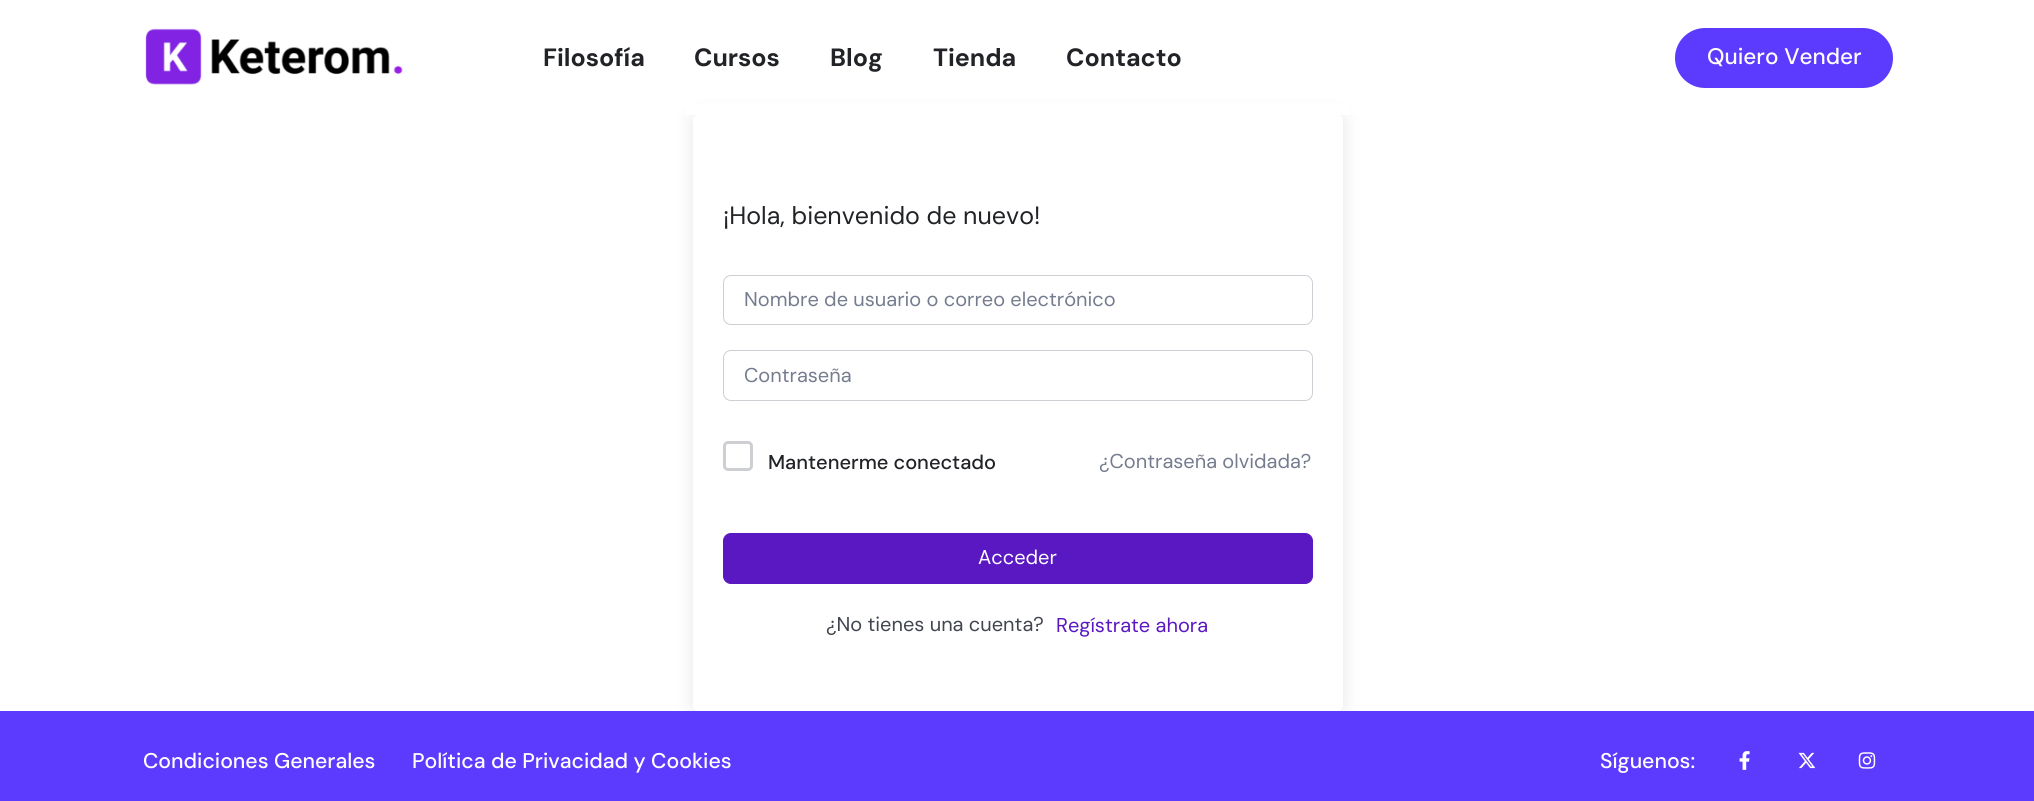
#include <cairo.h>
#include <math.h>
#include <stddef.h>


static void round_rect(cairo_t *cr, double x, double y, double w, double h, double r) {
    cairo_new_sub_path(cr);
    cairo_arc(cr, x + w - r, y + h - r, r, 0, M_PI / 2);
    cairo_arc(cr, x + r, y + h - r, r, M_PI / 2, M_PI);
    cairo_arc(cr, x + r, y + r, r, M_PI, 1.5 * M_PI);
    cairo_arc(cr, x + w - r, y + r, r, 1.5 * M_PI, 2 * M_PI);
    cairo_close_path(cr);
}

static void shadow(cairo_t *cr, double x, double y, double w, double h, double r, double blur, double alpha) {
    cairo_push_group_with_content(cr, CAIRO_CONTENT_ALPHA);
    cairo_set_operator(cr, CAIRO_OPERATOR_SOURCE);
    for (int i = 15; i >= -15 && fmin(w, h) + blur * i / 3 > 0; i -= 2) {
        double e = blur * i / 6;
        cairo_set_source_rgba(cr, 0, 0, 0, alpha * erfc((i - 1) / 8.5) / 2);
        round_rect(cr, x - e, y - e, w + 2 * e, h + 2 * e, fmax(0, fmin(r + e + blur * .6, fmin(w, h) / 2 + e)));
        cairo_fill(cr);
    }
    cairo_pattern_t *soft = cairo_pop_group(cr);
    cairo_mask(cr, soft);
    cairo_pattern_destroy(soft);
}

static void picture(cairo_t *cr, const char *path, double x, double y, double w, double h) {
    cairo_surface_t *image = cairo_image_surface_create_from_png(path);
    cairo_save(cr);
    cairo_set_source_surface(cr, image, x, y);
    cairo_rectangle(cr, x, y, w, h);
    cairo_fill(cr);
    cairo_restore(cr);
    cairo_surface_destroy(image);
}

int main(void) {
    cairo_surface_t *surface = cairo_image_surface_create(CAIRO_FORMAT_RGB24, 2034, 801);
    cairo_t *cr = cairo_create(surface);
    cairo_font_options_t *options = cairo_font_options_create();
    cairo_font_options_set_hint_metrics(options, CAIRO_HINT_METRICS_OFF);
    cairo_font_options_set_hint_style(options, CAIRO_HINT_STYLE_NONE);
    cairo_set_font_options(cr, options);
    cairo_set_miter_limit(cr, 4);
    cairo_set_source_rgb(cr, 1, 1, 1);
    cairo_paint(cr);
    cairo_save(cr);
    cairo_set_fill_rule(cr, CAIRO_FILL_RULE_EVEN_ODD);
    cairo_new_path(cr);
    cairo_move_to(cr, 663, 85);
    cairo_line_to(cr, 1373, 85);
    cairo_line_to(cr, 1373, 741);
    cairo_line_to(cr, 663, 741);
    cairo_close_path(cr);
    cairo_move_to(cr, 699, 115);
    cairo_line_to(cr, 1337, 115);
    cairo_curve_to(cr, 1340.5, 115, 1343, 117.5, 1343, 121);
    cairo_line_to(cr, 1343, 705);
    cairo_curve_to(cr, 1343, 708.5, 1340.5, 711, 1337, 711);
    cairo_line_to(cr, 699, 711);
    cairo_curve_to(cr, 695.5, 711, 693, 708.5, 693, 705);
    cairo_line_to(cr, 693, 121);
    cairo_curve_to(cr, 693, 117.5, 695.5, 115, 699, 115);
    cairo_close_path(cr);
    cairo_clip(cr);
    cairo_set_source_rgb(cr, 0, 0, 0);
    shadow(cr, 693, 115, 650, 596, 6, 9.5, 0.1);
    cairo_restore(cr);
    cairo_set_source_rgb(cr, 1, 1, 1);
    cairo_rectangle(cr, 686, 103, 664, 12);
    cairo_fill(cr);
    picture(cr, "img1.png", 145, 28, 258, 57);
    cairo_select_font_face(cr, "DM Sans", CAIRO_FONT_SLANT_NORMAL, CAIRO_FONT_WEIGHT_BOLD);
    cairo_set_font_size(cr, 25);
    cairo_set_source_rgb(cr, 0.129, 0.137, 0.153);
    cairo_move_to(cr, 543, 66);
    cairo_show_text(cr, "Filosofía");
    cairo_move_to(cr, 694, 66);
    cairo_show_text(cr, "Cursos");
    cairo_move_to(cr, 830, 66);
    cairo_show_text(cr, "Blog");
    cairo_move_to(cr, 933, 66);
    cairo_show_text(cr, "Tienda");
    cairo_move_to(cr, 1066, 66);
    cairo_show_text(cr, "Contacto");
    cairo_set_source_rgb(cr, 0.361, 0.231, 0.996);
    cairo_rectangle(cr, 1706, 47, 155, 22);
    cairo_fill(cr);
    round_rect(cr, 1684.5, 37.5, 199, 41, 20.5);
    cairo_set_line_width(cr, 19);
    cairo_stroke(cr);
    cairo_rectangle(cr, 1861, 47, 13, 22);
    cairo_fill(cr);
    cairo_rectangle(cr, 1694, 47, 12, 22);
    cairo_fill(cr);
    cairo_select_font_face(cr, "DM Sans Medium", CAIRO_FONT_SLANT_NORMAL, CAIRO_FONT_WEIGHT_NORMAL);
    cairo_set_font_size(cr, 22.5);
    cairo_set_source_rgb(cr, 1, 1, 1);
    cairo_move_to(cr, 1707, 64);
    cairo_show_text(cr, "Quiero Vender");
    cairo_select_font_face(cr, "DM Sans", CAIRO_FONT_SLANT_NORMAL, CAIRO_FONT_WEIGHT_NORMAL);
    cairo_set_font_size(cr, 25);
    cairo_set_source_rgb(cr, 0.129, 0.137, 0.153);
    cairo_move_to(cr, 723, 224);
    cairo_show_text(cr, "¡Hola, bienvenido de nuevo!");
    round_rect(cr, 723.5, 275.5, 589, 49, 7.5);
    cairo_set_source_rgb(cr, 0.804, 0.812, 0.835);
    cairo_set_line_width(cr, 1);
    cairo_stroke(cr);
    cairo_set_font_size(cr, 20);
    cairo_set_source_rgb(cr, 0.459, 0.486, 0.557);
    cairo_move_to(cr, 744, 306);
    cairo_show_text(cr, "Nombre de usuario o correo electrónico");
    round_rect(cr, 723.5, 350.5, 589, 50, 7.5);
    cairo_set_source_rgb(cr, 0.804, 0.812, 0.835);
    cairo_stroke(cr);
    cairo_set_source_rgb(cr, 0.459, 0.486, 0.557);
    cairo_move_to(cr, 744, 382);
    cairo_show_text(cr, "Contraseña");
    round_rect(cr, 724.5, 442.5, 27, 27, 3.5);
    cairo_set_source_rgb(cr, 0.804, 0.812, 0.835);
    cairo_set_line_width(cr, 3);
    cairo_stroke(cr);
    cairo_select_font_face(cr, "DM Sans Medium", CAIRO_FONT_SLANT_NORMAL, CAIRO_FONT_WEIGHT_NORMAL);
    cairo_set_source_rgb(cr, 0.129, 0.137, 0.153);
    cairo_move_to(cr, 768, 469);
    cairo_show_text(cr, "Mantenerme conectado");
    cairo_select_font_face(cr, "DM Sans", CAIRO_FONT_SLANT_NORMAL, CAIRO_FONT_WEIGHT_NORMAL);
    cairo_set_source_rgb(cr, 0.459, 0.486, 0.557);
    cairo_move_to(cr, 1099, 468);
    cairo_show_text(cr, "¿Contraseña olvidada?");
    cairo_set_source_rgb(cr, 0.353, 0.094, 0.761);
    round_rect(cr, 723.5, 533.5, 589, 50, 7.5);
    cairo_fill_preserve(cr);
    cairo_set_line_width(cr, 1);
    cairo_stroke(cr);
    cairo_set_source_rgb(cr, 1, 1, 1);
    cairo_move_to(cr, 978, 564);
    cairo_show_text(cr, "Acceder");
    cairo_set_source_rgb(cr, 0.255, 0.271, 0.31);
    cairo_move_to(cr, 826, 631);
    cairo_show_text(cr, "¿No tienes una cuenta?");
    cairo_set_source_rgb(cr, 0.353, 0.094, 0.761);
    cairo_move_to(cr, 1056, 632);
    cairo_show_text(cr, "Regístrate ahora");
    cairo_set_source_rgb(cr, 0.361, 0.231, 0.996);
    cairo_rectangle(cr, 0, 711, 2034, 90);
    cairo_fill(cr);
    cairo_select_font_face(cr, "DM Sans Medium", CAIRO_FONT_SLANT_NORMAL, CAIRO_FONT_WEIGHT_NORMAL);
    cairo_set_font_size(cr, 21.25);
    cairo_set_source_rgb(cr, 1, 1, 1);
    cairo_move_to(cr, 143, 768);
    cairo_show_text(cr, "Condiciones Generales");
    cairo_move_to(cr, 412, 768);
    cairo_show_text(cr, "Política de Privacidad y Cookies");
    cairo_move_to(cr, 1600, 768);
    cairo_show_text(cr, "Síguenos:");
    picture(cr, "img2.png", 1739, 751, 11, 19);
    picture(cr, "img3.png", 1798, 752, 18, 17);
    picture(cr, "img4.png", 1858, 752, 18, 17);
    cairo_surface_write_to_png(surface, "page.png");
    cairo_font_options_destroy(options);
    cairo_destroy(cr);
    cairo_surface_destroy(surface);
    return 0;
}
